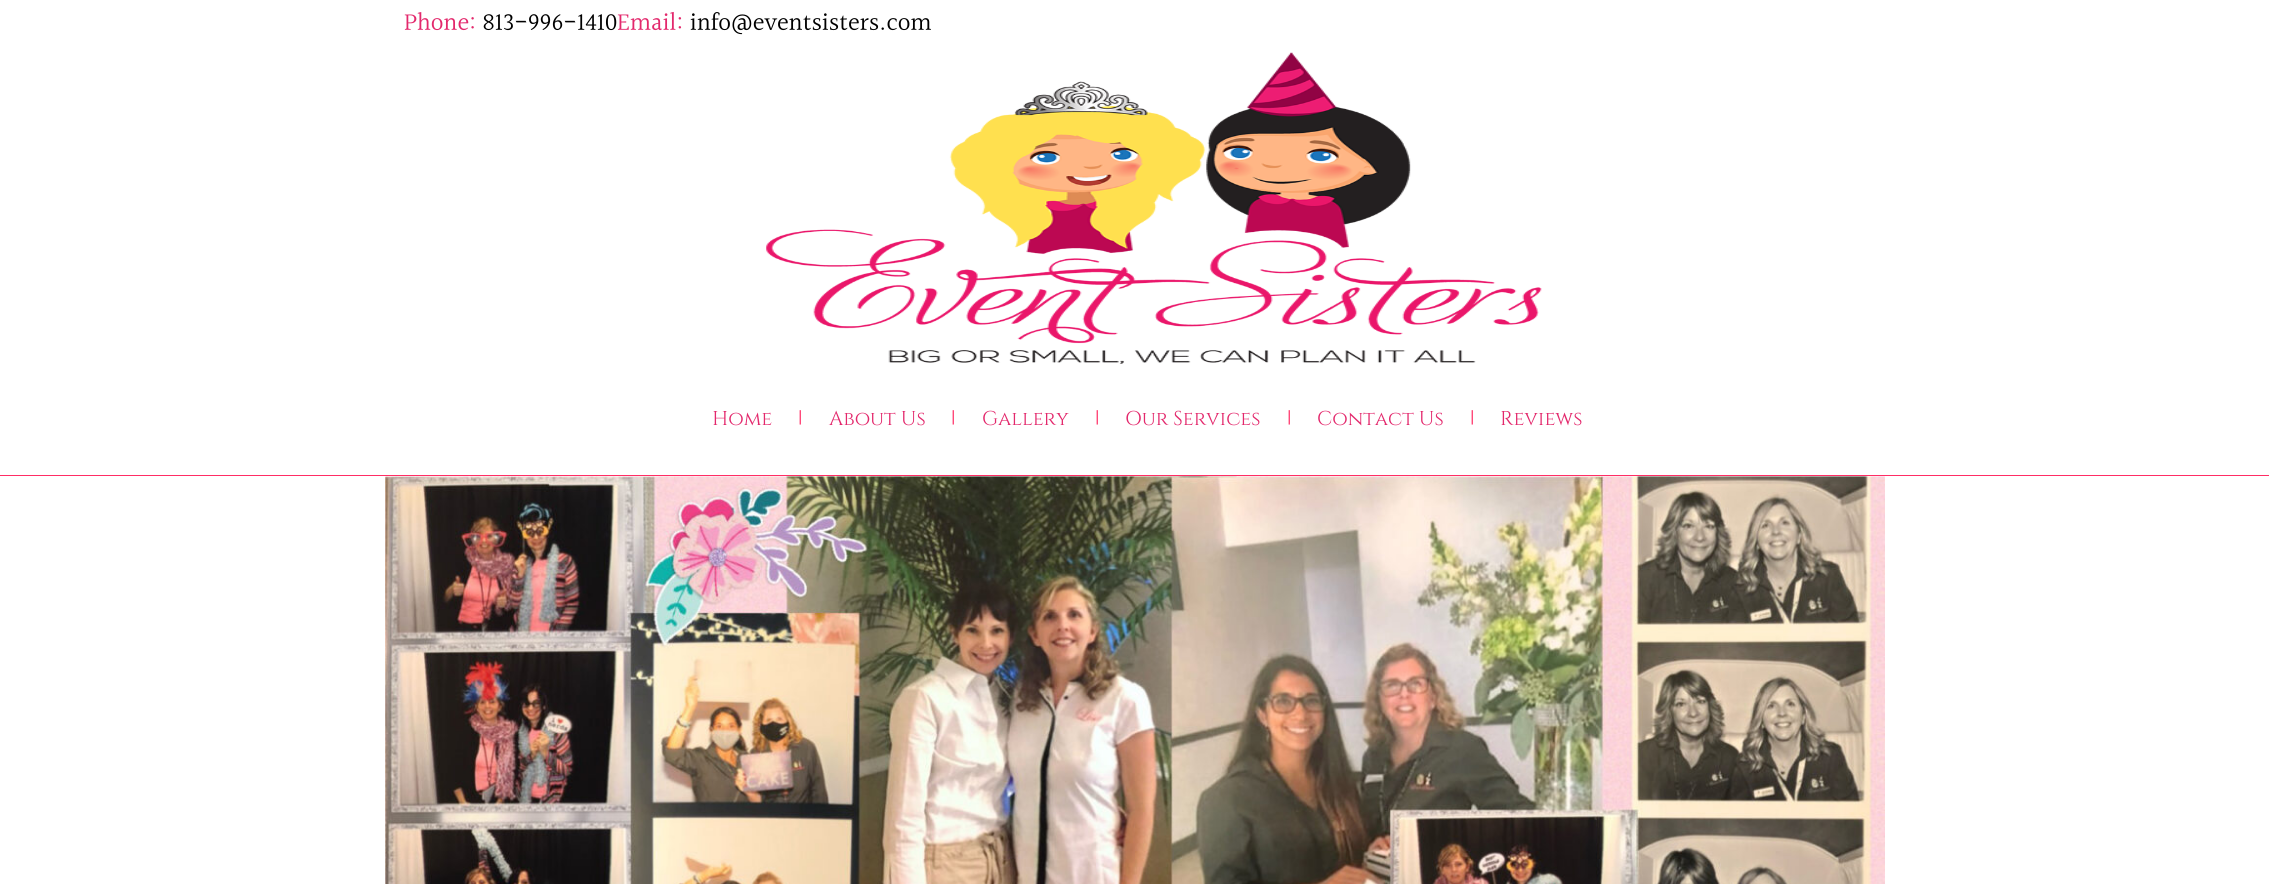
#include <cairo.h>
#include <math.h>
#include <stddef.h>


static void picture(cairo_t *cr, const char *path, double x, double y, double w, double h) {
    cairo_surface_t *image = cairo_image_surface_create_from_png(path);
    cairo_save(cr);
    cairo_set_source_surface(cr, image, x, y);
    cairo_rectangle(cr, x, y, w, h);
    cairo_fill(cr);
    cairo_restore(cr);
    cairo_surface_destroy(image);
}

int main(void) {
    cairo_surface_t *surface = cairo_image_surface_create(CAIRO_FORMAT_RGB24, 2269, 884);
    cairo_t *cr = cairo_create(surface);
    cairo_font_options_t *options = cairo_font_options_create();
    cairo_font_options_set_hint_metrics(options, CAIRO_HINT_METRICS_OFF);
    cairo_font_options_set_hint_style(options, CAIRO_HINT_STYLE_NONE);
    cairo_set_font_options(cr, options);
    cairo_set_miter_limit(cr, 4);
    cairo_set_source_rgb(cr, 1, 1, 1);
    cairo_paint(cr);
    cairo_select_font_face(cr, "Halant", CAIRO_FONT_SLANT_NORMAL, CAIRO_FONT_WEIGHT_NORMAL);
    cairo_set_font_size(cr, 25);
    cairo_set_source_rgb(cr, 0.89, 0.157, 0.424);
    cairo_move_to(cr, 404, 31);
    cairo_show_text(cr, "Phone:");
    cairo_set_source_rgb(cr, 0, 0, 0);
    cairo_move_to(cr, 482, 31);
    cairo_show_text(cr, "813-996-1410");
    cairo_set_source_rgb(cr, 0.89, 0.157, 0.424);
    cairo_move_to(cr, 617, 31);
    cairo_show_text(cr, "Email:");
    cairo_set_source_rgb(cr, 0, 0, 0);
    cairo_move_to(cr, 690, 31);
    cairo_show_text(cr, "info@eventsisters.com");
    cairo_set_source_rgb(cr, 1, 0.176, 0.396);
    cairo_rectangle(cr, 0, 475, 2269, 1);
    cairo_fill(cr);
    picture(cr, "img1.png", 766, 52, 776, 312);
    cairo_select_font_face(cr, "Cinzel", CAIRO_FONT_SLANT_NORMAL, CAIRO_FONT_WEIGHT_NORMAL);
    cairo_set_font_size(cr, 20);
    cairo_set_source_rgb(cr, 0.89, 0.157, 0.424);
    cairo_move_to(cr, 712, 425);
    cairo_show_text(cr, "Home");
    cairo_select_font_face(cr, "Halant", CAIRO_FONT_SLANT_NORMAL, CAIRO_FONT_WEIGHT_NORMAL);
    cairo_set_source_rgb(cr, 1, 0.176, 0.396);
    cairo_move_to(cr, 797, 425);
    cairo_show_text(cr, "|");
    cairo_select_font_face(cr, "Cinzel", CAIRO_FONT_SLANT_NORMAL, CAIRO_FONT_WEIGHT_NORMAL);
    cairo_set_source_rgb(cr, 0.89, 0.157, 0.424);
    cairo_move_to(cr, 829, 425);
    cairo_show_text(cr, "About Us");
    cairo_select_font_face(cr, "Halant", CAIRO_FONT_SLANT_NORMAL, CAIRO_FONT_WEIGHT_NORMAL);
    cairo_set_source_rgb(cr, 1, 0.176, 0.396);
    cairo_move_to(cr, 950, 425);
    cairo_show_text(cr, "|");
    cairo_select_font_face(cr, "Cinzel", CAIRO_FONT_SLANT_NORMAL, CAIRO_FONT_WEIGHT_NORMAL);
    cairo_set_source_rgb(cr, 0.89, 0.157, 0.424);
    cairo_move_to(cr, 982, 425);
    cairo_show_text(cr, "Gallery");
    cairo_select_font_face(cr, "Halant", CAIRO_FONT_SLANT_NORMAL, CAIRO_FONT_WEIGHT_NORMAL);
    cairo_set_source_rgb(cr, 1, 0.176, 0.396);
    cairo_move_to(cr, 1094, 425);
    cairo_show_text(cr, "|");
    cairo_select_font_face(cr, "Cinzel", CAIRO_FONT_SLANT_NORMAL, CAIRO_FONT_WEIGHT_NORMAL);
    cairo_set_source_rgb(cr, 0.89, 0.157, 0.424);
    cairo_move_to(cr, 1125, 425);
    cairo_show_text(cr, "Our Services");
    cairo_select_font_face(cr, "Halant", CAIRO_FONT_SLANT_NORMAL, CAIRO_FONT_WEIGHT_NORMAL);
    cairo_set_source_rgb(cr, 1, 0.176, 0.396);
    cairo_move_to(cr, 1286, 425);
    cairo_show_text(cr, "|");
    cairo_select_font_face(cr, "Cinzel", CAIRO_FONT_SLANT_NORMAL, CAIRO_FONT_WEIGHT_NORMAL);
    cairo_set_source_rgb(cr, 0.89, 0.157, 0.424);
    cairo_move_to(cr, 1317, 425);
    cairo_show_text(cr, "Contact Us");
    cairo_select_font_face(cr, "Halant", CAIRO_FONT_SLANT_NORMAL, CAIRO_FONT_WEIGHT_NORMAL);
    cairo_set_source_rgb(cr, 1, 0.176, 0.396);
    cairo_move_to(cr, 1469, 425);
    cairo_show_text(cr, "|");
    cairo_select_font_face(cr, "Cinzel", CAIRO_FONT_SLANT_NORMAL, CAIRO_FONT_WEIGHT_NORMAL);
    cairo_set_source_rgb(cr, 0.89, 0.157, 0.424);
    cairo_move_to(cr, 1500, 425);
    cairo_show_text(cr, "Reviews");
    picture(cr, "img2.png", 385, 476, 1500, 408);
    cairo_surface_write_to_png(surface, "page.png");
    cairo_font_options_destroy(options);
    cairo_destroy(cr);
    cairo_surface_destroy(surface);
    return 0;
}
